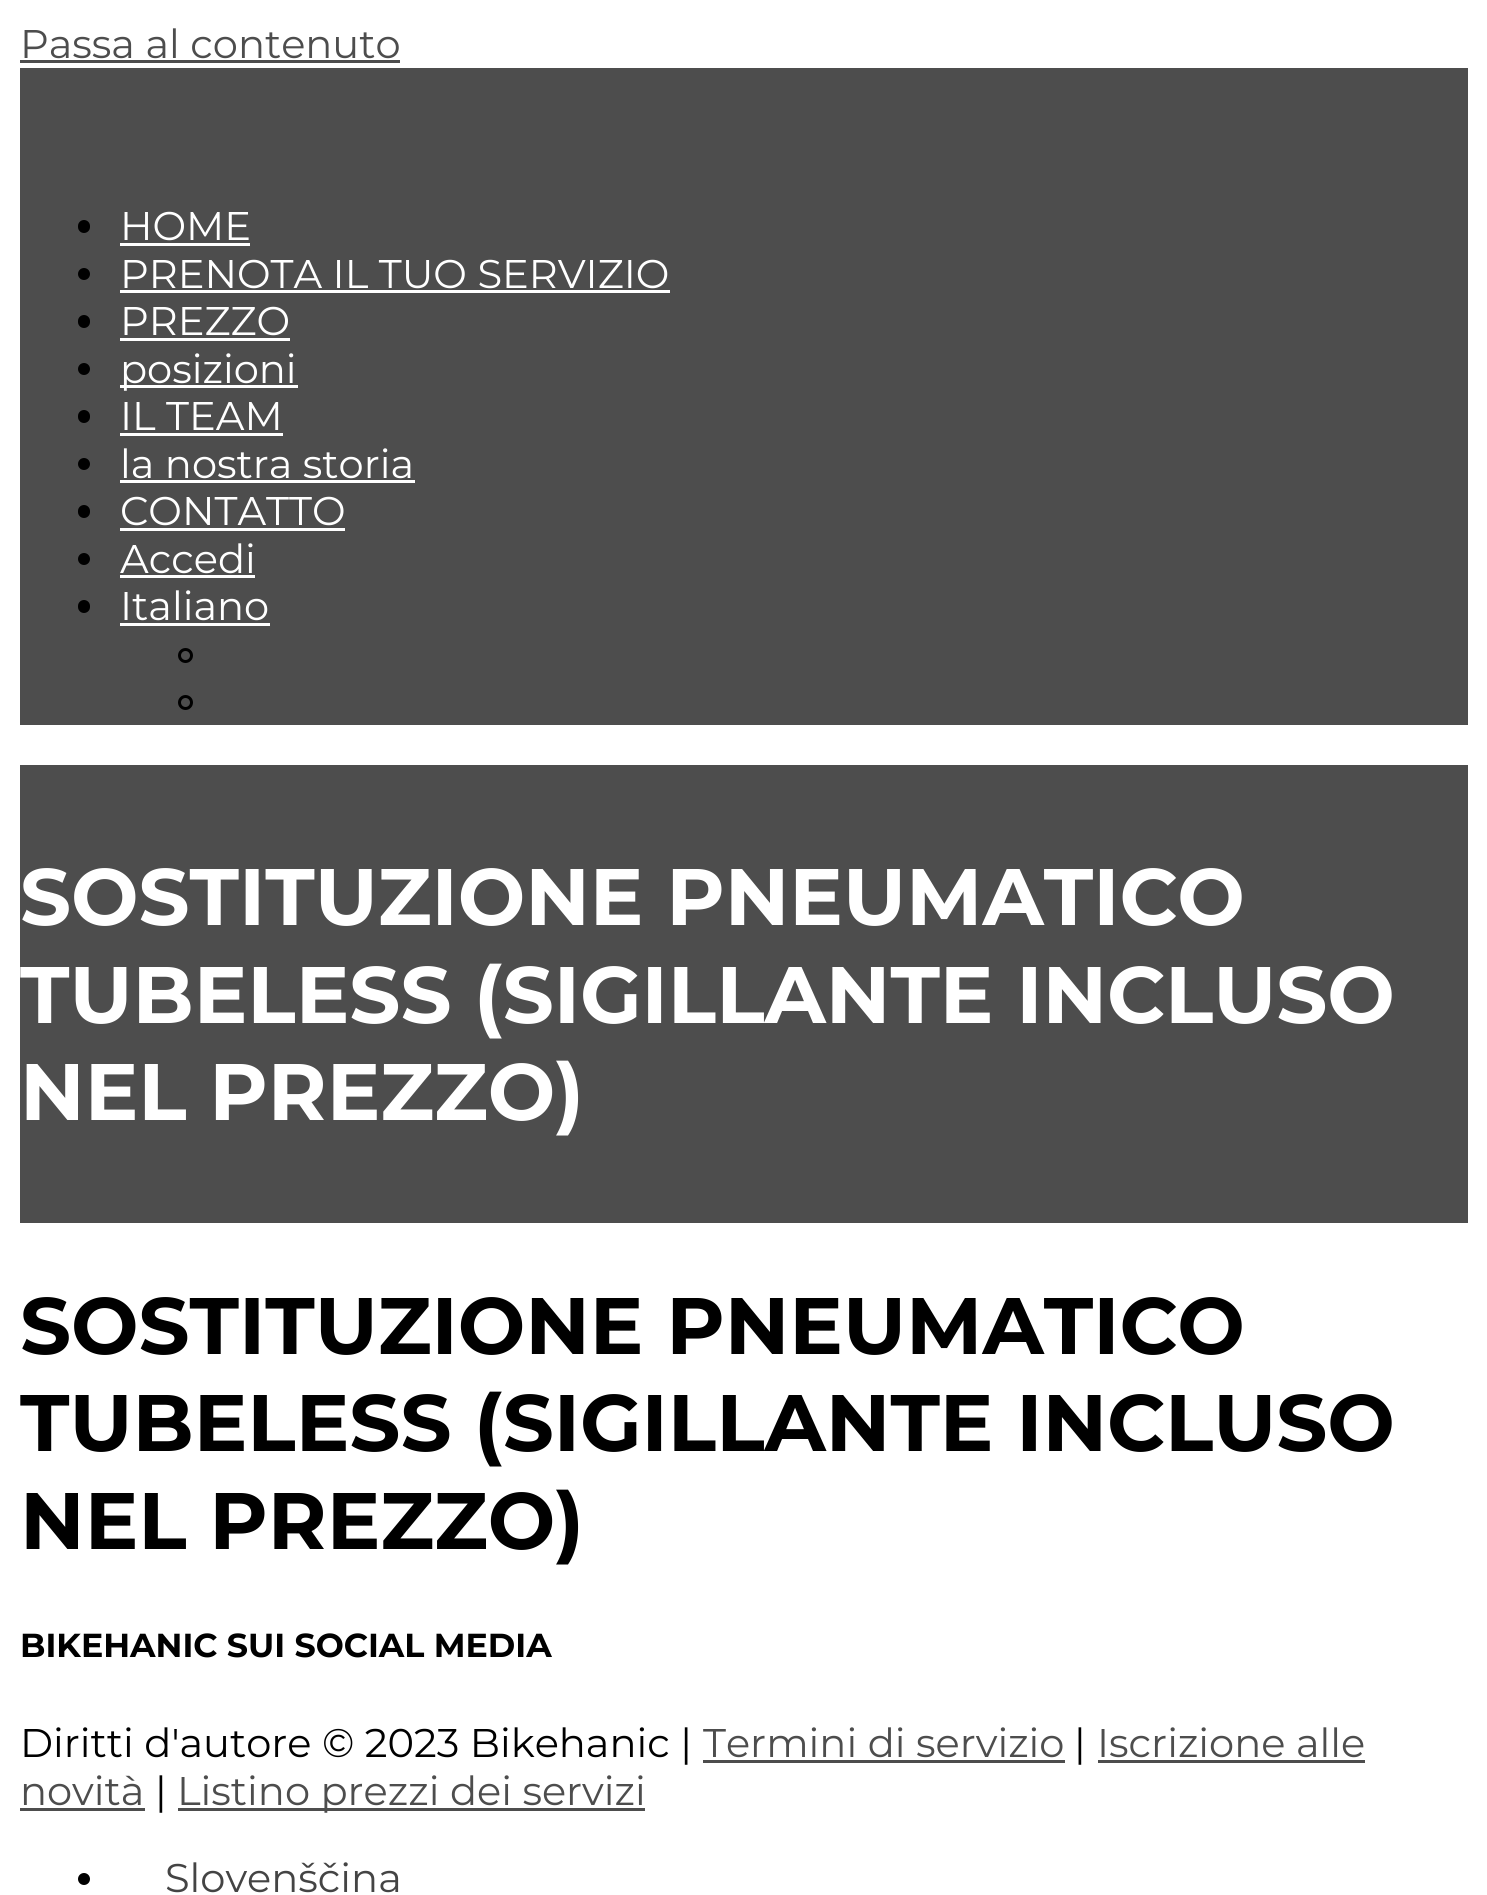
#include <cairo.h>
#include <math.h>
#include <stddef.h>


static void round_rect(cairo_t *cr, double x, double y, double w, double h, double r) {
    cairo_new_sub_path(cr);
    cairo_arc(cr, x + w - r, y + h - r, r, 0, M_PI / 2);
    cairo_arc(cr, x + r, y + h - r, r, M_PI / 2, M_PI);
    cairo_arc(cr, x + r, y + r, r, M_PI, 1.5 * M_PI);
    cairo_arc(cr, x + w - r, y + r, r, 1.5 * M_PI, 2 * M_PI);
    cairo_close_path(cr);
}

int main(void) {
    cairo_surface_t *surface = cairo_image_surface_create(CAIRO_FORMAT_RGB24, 1487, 1895);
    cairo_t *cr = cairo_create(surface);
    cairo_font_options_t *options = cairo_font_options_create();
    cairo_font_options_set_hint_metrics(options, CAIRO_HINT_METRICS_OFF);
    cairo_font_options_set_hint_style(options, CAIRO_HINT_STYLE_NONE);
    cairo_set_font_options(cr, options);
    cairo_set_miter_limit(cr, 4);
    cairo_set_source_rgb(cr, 1, 1, 1);
    cairo_paint(cr);
    cairo_select_font_face(cr, "Montserrat", CAIRO_FONT_SLANT_NORMAL, CAIRO_FONT_WEIGHT_NORMAL);
    cairo_set_font_size(cr, 40);
    cairo_set_source_rgb(cr, 0.302, 0.302, 0.302);
    cairo_move_to(cr, 20, 58);
    cairo_show_text(cr, "Passa al contenuto");
    cairo_rectangle(cr, 20, 60, 380, 3);
    cairo_fill(cr);
    cairo_rectangle(cr, 20, 68, 1448, 657);
    cairo_fill(cr);
    cairo_set_source_rgb(cr, 0, 0, 0);
    round_rect(cr, 78, 220, 12, 13, 6);
    cairo_fill(cr);
    cairo_set_source_rgb(cr, 1, 1, 1);
    cairo_move_to(cr, 120, 240);
    cairo_show_text(cr, "HOME");
    cairo_rectangle(cr, 120, 243, 130, 3);
    cairo_fill(cr);
    cairo_set_source_rgb(cr, 0, 0, 0);
    cairo_arc(cr, 84, 274, 6, 0, 2 * M_PI);
    cairo_fill(cr);
    cairo_set_source_rgb(cr, 1, 1, 1);
    cairo_move_to(cr, 120, 288);
    cairo_show_text(cr, "PRENOTA IL TUO SERVIZIO");
    cairo_rectangle(cr, 120, 290, 550, 3);
    cairo_fill(cr);
    cairo_set_source_rgb(cr, 0, 0, 0);
    round_rect(cr, 78, 315, 12, 13, 6);
    cairo_fill(cr);
    cairo_set_source_rgb(cr, 1, 1, 1);
    cairo_move_to(cr, 120, 335);
    cairo_show_text(cr, "PREZZO");
    cairo_rectangle(cr, 120, 338, 170, 3);
    cairo_fill(cr);
    cairo_set_source_rgb(cr, 0, 0, 0);
    cairo_arc(cr, 84, 369, 6, 0, 2 * M_PI);
    cairo_fill(cr);
    cairo_set_source_rgb(cr, 1, 1, 1);
    cairo_rectangle(cr, 120, 385, 178, 3);
    cairo_fill(cr);
    cairo_move_to(cr, 120, 383);
    cairo_show_text(cr, "posizioni");
    cairo_set_source_rgb(cr, 0, 0, 0);
    round_rect(cr, 78, 410, 12, 13, 6);
    cairo_fill(cr);
    cairo_set_source_rgb(cr, 1, 1, 1);
    cairo_move_to(cr, 120, 430);
    cairo_show_text(cr, "IL TEAM");
    cairo_rectangle(cr, 120, 433, 163, 3);
    cairo_fill(cr);
    cairo_set_source_rgb(cr, 0, 0, 0);
    cairo_arc(cr, 84, 464, 6, 0, 2 * M_PI);
    cairo_fill(cr);
    cairo_set_source_rgb(cr, 1, 1, 1);
    cairo_move_to(cr, 120, 478);
    cairo_show_text(cr, "la nostra storia");
    cairo_rectangle(cr, 120, 480, 295, 3);
    cairo_fill(cr);
    cairo_set_source_rgb(cr, 0, 0, 0);
    round_rect(cr, 78, 505, 12, 13, 6);
    cairo_fill(cr);
    cairo_set_source_rgb(cr, 1, 1, 1);
    cairo_move_to(cr, 120, 525);
    cairo_show_text(cr, "CONTATTO");
    cairo_rectangle(cr, 120, 528, 225, 3);
    cairo_fill(cr);
    cairo_set_source_rgb(cr, 0, 0, 0);
    cairo_arc(cr, 84, 559, 6, 0, 2 * M_PI);
    cairo_fill(cr);
    cairo_set_source_rgb(cr, 1, 1, 1);
    cairo_move_to(cr, 120, 573);
    cairo_show_text(cr, "Accedi");
    cairo_rectangle(cr, 120, 575, 135, 3);
    cairo_fill(cr);
    cairo_set_source_rgb(cr, 0, 0, 0);
    round_rect(cr, 78, 600, 12, 13, 6);
    cairo_fill(cr);
    cairo_set_source_rgb(cr, 1, 1, 1);
    cairo_move_to(cr, 120, 620);
    cairo_show_text(cr, "Italiano");
    cairo_rectangle(cr, 120, 623, 150, 3);
    cairo_fill(cr);
    cairo_arc(cr, 185.5, 655.5, 6, 0, 2 * M_PI);
    cairo_set_source_rgb(cr, 0, 0, 0);
    cairo_set_line_width(cr, 3);
    cairo_stroke(cr);
    cairo_arc(cr, 185.5, 702.5, 6, 0, 2 * M_PI);
    cairo_stroke(cr);
    cairo_set_source_rgb(cr, 0.302, 0.302, 0.302);
    cairo_rectangle(cr, 20, 765, 1448, 458);
    cairo_fill(cr);
    cairo_select_font_face(cr, "Montserrat", CAIRO_FONT_SLANT_NORMAL, CAIRO_FONT_WEIGHT_BOLD);
    cairo_set_font_size(cr, 80);
    cairo_set_source_rgb(cr, 1, 1, 1);
    cairo_move_to(cr, 20, 925);
    cairo_show_text(cr, "SOSTITUZIONE PNEUMATICO");
    cairo_move_to(cr, 20, 1023);
    cairo_show_text(cr, "TUBELESS (SIGILLANTE INCLUSO");
    cairo_move_to(cr, 20, 1120);
    cairo_show_text(cr, "NEL PREZZO)");
    cairo_set_source_rgb(cr, 0, 0, 0);
    cairo_move_to(cr, 20, 1354);
    cairo_show_text(cr, "SOSTITUZIONE PNEUMATICO");
    cairo_move_to(cr, 20, 1451);
    cairo_show_text(cr, "TUBELESS (SIGILLANTE INCLUSO");
    cairo_move_to(cr, 20, 1549);
    cairo_show_text(cr, "NEL PREZZO)");
    cairo_set_font_size(cr, 33.25);
    cairo_move_to(cr, 20, 1657);
    cairo_show_text(cr, "BIKEHANIC SUI SOCIAL MEDIA");
    cairo_select_font_face(cr, "Montserrat", CAIRO_FONT_SLANT_NORMAL, CAIRO_FONT_WEIGHT_NORMAL);
    cairo_set_font_size(cr, 40);
    cairo_move_to(cr, 20, 1757);
    cairo_show_text(cr, "Diritti d'autore © 2023 Bikehanic |");
    cairo_set_source_rgb(cr, 0.302, 0.302, 0.302);
    cairo_move_to(cr, 703, 1757);
    cairo_show_text(cr, "Termini di servizio");
    cairo_rectangle(cr, 703, 1760, 362, 3);
    cairo_fill(cr);
    cairo_set_source_rgb(cr, 0, 0, 0);
    cairo_move_to(cr, 1074, 1757);
    cairo_show_text(cr, "|");
    cairo_set_source_rgb(cr, 0.302, 0.302, 0.302);
    cairo_move_to(cr, 1097, 1757);
    cairo_show_text(cr, "Iscrizione alle");
    cairo_rectangle(cr, 1098, 1760, 267, 3);
    cairo_fill(cr);
    cairo_move_to(cr, 20, 1805);
    cairo_show_text(cr, "novità");
    cairo_rectangle(cr, 20, 1808, 125, 3);
    cairo_fill(cr);
    cairo_set_source_rgb(cr, 0, 0, 0);
    cairo_move_to(cr, 155, 1805);
    cairo_show_text(cr, "|");
    cairo_set_source_rgb(cr, 0.302, 0.302, 0.302);
    cairo_rectangle(cr, 178, 1808, 467, 3);
    cairo_fill(cr);
    cairo_move_to(cr, 177, 1805);
    cairo_show_text(cr, "Listino prezzi dei servizi");
    cairo_set_source_rgb(cr, 0, 0, 0);
    cairo_new_path(cr);
    cairo_arc(cr, 84, 1879, 6, 0, 2 * M_PI);
    cairo_fill(cr);
    cairo_set_source_rgb(cr, 0.267, 0.267, 0.267);
    cairo_move_to(cr, 165, 1892);
    cairo_show_text(cr, "Slovenščina");
    cairo_surface_write_to_png(surface, "page.png");
    cairo_font_options_destroy(options);
    cairo_destroy(cr);
    cairo_surface_destroy(surface);
    return 0;
}
